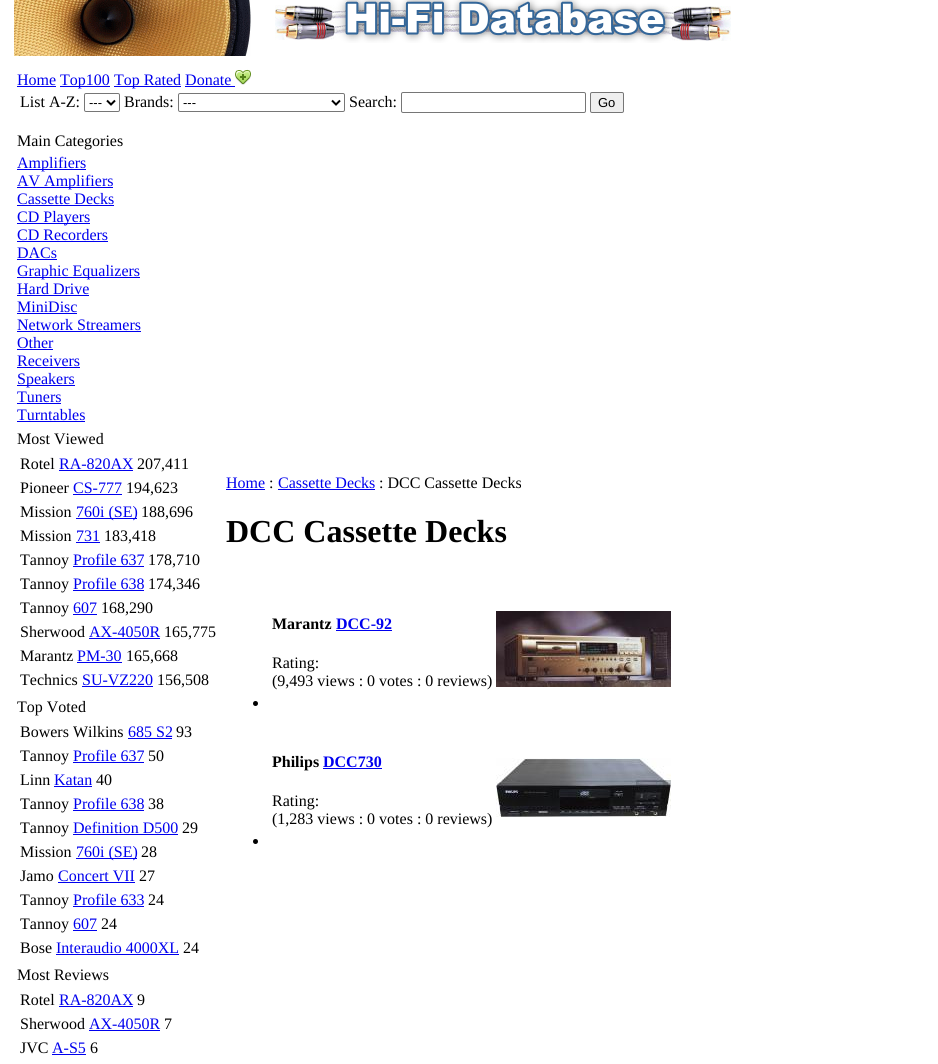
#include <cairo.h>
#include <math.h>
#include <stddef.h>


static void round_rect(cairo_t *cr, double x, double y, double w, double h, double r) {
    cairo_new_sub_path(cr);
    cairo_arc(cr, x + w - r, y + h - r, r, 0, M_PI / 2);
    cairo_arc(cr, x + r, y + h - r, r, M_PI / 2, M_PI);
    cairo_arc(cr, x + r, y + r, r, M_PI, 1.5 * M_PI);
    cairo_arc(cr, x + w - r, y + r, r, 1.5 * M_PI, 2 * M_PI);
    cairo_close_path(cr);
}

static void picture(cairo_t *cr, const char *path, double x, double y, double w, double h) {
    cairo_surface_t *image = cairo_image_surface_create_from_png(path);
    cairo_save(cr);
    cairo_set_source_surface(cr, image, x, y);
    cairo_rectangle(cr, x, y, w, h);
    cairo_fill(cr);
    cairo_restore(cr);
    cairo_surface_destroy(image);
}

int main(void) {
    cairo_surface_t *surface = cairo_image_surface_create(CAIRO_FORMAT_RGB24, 938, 1064);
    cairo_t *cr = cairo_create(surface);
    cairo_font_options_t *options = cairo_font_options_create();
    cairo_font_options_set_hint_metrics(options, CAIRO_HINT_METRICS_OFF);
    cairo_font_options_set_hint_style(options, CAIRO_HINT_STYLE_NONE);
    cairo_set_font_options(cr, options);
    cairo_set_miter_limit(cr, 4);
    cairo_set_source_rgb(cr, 1, 1, 1);
    cairo_paint(cr);
    picture(cr, "img1.png", 14, 0, 237, 56);
    picture(cr, "img2.png", 275, 0, 456, 43);
    cairo_select_font_face(cr, "Liberation Serif", CAIRO_FONT_SLANT_NORMAL, CAIRO_FONT_WEIGHT_NORMAL);
    cairo_set_font_size(cr, 16);
    cairo_set_source_rgb(cr, 0, 0, 0.933);
    cairo_move_to(cr, 17, 85);
    cairo_show_text(cr, "Home");
    cairo_rectangle(cr, 17, 86, 39, 1);
    cairo_fill(cr);
    cairo_rectangle(cr, 60, 86, 50, 1);
    cairo_fill(cr);
    cairo_move_to(cr, 60, 85);
    cairo_show_text(cr, "Top100");
    cairo_rectangle(cr, 114, 86, 67, 1);
    cairo_fill(cr);
    cairo_move_to(cr, 114, 85);
    cairo_show_text(cr, "Top Rated Donate");
    picture(cr, "img3.png", 235, 69, 16, 16);
    cairo_rectangle(cr, 185, 86, 50, 1);
    cairo_fill(cr);
    cairo_set_source_rgb(cr, 0, 0, 0);
    cairo_move_to(cr, 20, 107);
    cairo_show_text(cr, "List A-Z:");
    round_rect(cr, 84.5, 93.5, 35, 18, 1.5);
    cairo_set_source_rgb(cr, 0.463, 0.463, 0.463);
    cairo_set_line_width(cr, 1);
    cairo_stroke(cr);
    cairo_new_path(cr);
    cairo_move_to(cr, 107, 100.5);
    cairo_line_to(cr, 111, 104.5);
    cairo_line_to(cr, 115, 100.5);
    cairo_set_source_rgb(cr, 0, 0, 0);
    cairo_set_line_width(cr, 2);
    cairo_stroke(cr);
    cairo_select_font_face(cr, "Liberation Sans", CAIRO_FONT_SLANT_NORMAL, CAIRO_FONT_WEIGHT_NORMAL);
    cairo_set_font_size(cr, 13);
    cairo_move_to(cr, 89, 107);
    cairo_show_text(cr, "---");
    cairo_select_font_face(cr, "Liberation Serif", CAIRO_FONT_SLANT_NORMAL, CAIRO_FONT_WEIGHT_NORMAL);
    cairo_set_font_size(cr, 16);
    cairo_move_to(cr, 124, 107);
    cairo_show_text(cr, "Brands:");
    round_rect(cr, 178.5, 93.5, 166, 18, 1.5);
    cairo_set_source_rgb(cr, 0.463, 0.463, 0.463);
    cairo_set_line_width(cr, 1);
    cairo_stroke(cr);
    cairo_new_path(cr);
    cairo_move_to(cr, 332, 100.5);
    cairo_line_to(cr, 336, 104.5);
    cairo_line_to(cr, 340, 100.5);
    cairo_set_source_rgb(cr, 0, 0, 0);
    cairo_set_line_width(cr, 2);
    cairo_stroke(cr);
    cairo_select_font_face(cr, "Liberation Sans", CAIRO_FONT_SLANT_NORMAL, CAIRO_FONT_WEIGHT_NORMAL);
    cairo_set_font_size(cr, 13);
    cairo_move_to(cr, 183, 107);
    cairo_show_text(cr, "---");
    cairo_select_font_face(cr, "Liberation Serif", CAIRO_FONT_SLANT_NORMAL, CAIRO_FONT_WEIGHT_NORMAL);
    cairo_set_font_size(cr, 16);
    cairo_move_to(cr, 349, 107);
    cairo_show_text(cr, "Search:");
    round_rect(cr, 401.5, 92.5, 184, 20, 1.5);
    cairo_set_source_rgb(cr, 0.463, 0.463, 0.463);
    cairo_set_line_width(cr, 1);
    cairo_stroke(cr);
    cairo_set_source_rgb(cr, 0.937, 0.937, 0.937);
    round_rect(cr, 590.5, 92.5, 33, 20, 1.5);
    cairo_fill_preserve(cr);
    cairo_set_source_rgb(cr, 0.463, 0.463, 0.463);
    cairo_stroke(cr);
    cairo_select_font_face(cr, "Liberation Sans", CAIRO_FONT_SLANT_NORMAL, CAIRO_FONT_WEIGHT_NORMAL);
    cairo_set_font_size(cr, 13);
    cairo_set_source_rgb(cr, 0, 0, 0);
    cairo_move_to(cr, 598, 107);
    cairo_show_text(cr, "Go");
    cairo_select_font_face(cr, "Liberation Serif", CAIRO_FONT_SLANT_NORMAL, CAIRO_FONT_WEIGHT_NORMAL);
    cairo_set_font_size(cr, 16);
    cairo_move_to(cr, 17, 146);
    cairo_show_text(cr, "Main Categories");
    cairo_set_source_rgb(cr, 0, 0, 0.933);
    cairo_rectangle(cr, 17, 169, 69, 1);
    cairo_fill(cr);
    cairo_move_to(cr, 17, 168);
    cairo_show_text(cr, "Amplifiers");
    cairo_rectangle(cr, 17, 187, 96, 1);
    cairo_fill(cr);
    cairo_move_to(cr, 17, 186);
    cairo_show_text(cr, "AV Amplifiers");
    cairo_move_to(cr, 17, 204);
    cairo_show_text(cr, "Cassette Decks");
    cairo_rectangle(cr, 17, 205, 97, 1);
    cairo_fill(cr);
    cairo_rectangle(cr, 17, 223, 73, 1);
    cairo_fill(cr);
    cairo_move_to(cr, 17, 222);
    cairo_show_text(cr, "CD Players");
    cairo_move_to(cr, 17, 240);
    cairo_show_text(cr, "CD Recorders");
    cairo_rectangle(cr, 17, 241, 91, 1);
    cairo_fill(cr);
    cairo_move_to(cr, 17, 258);
    cairo_show_text(cr, "DACs");
    cairo_rectangle(cr, 17, 259, 40, 1);
    cairo_fill(cr);
    cairo_rectangle(cr, 17, 277, 123, 1);
    cairo_fill(cr);
    cairo_move_to(cr, 17, 276);
    cairo_show_text(cr, "Graphic Equalizers");
    cairo_move_to(cr, 17, 294);
    cairo_show_text(cr, "Hard Drive");
    cairo_rectangle(cr, 17, 295, 72, 1);
    cairo_fill(cr);
    cairo_move_to(cr, 17, 312);
    cairo_show_text(cr, "MiniDisc");
    cairo_rectangle(cr, 17, 313, 60, 1);
    cairo_fill(cr);
    cairo_move_to(cr, 17, 330);
    cairo_show_text(cr, "Network Streamers");
    cairo_rectangle(cr, 17, 331, 124, 1);
    cairo_fill(cr);
    cairo_move_to(cr, 17, 348);
    cairo_show_text(cr, "Other");
    cairo_rectangle(cr, 17, 349, 36, 1);
    cairo_fill(cr);
    cairo_move_to(cr, 17, 366);
    cairo_show_text(cr, "Receivers");
    cairo_rectangle(cr, 17, 367, 63, 1);
    cairo_fill(cr);
    cairo_rectangle(cr, 17, 385, 58, 1);
    cairo_fill(cr);
    cairo_move_to(cr, 17, 384);
    cairo_show_text(cr, "Speakers");
    cairo_move_to(cr, 17, 402);
    cairo_show_text(cr, "Tuners");
    cairo_rectangle(cr, 17, 403, 44, 1);
    cairo_fill(cr);
    cairo_move_to(cr, 17, 420);
    cairo_show_text(cr, "Turntables");
    cairo_rectangle(cr, 17, 421, 68, 1);
    cairo_fill(cr);
    cairo_set_source_rgb(cr, 0, 0, 0);
    cairo_move_to(cr, 17, 444);
    cairo_show_text(cr, "Most Viewed");
    cairo_move_to(cr, 20, 469);
    cairo_show_text(cr, "Rotel");
    cairo_set_source_rgb(cr, 0, 0, 0.933);
    cairo_move_to(cr, 59, 469);
    cairo_show_text(cr, "RA-820AX");
    cairo_rectangle(cr, 59, 470, 74, 1);
    cairo_fill(cr);
    cairo_set_source_rgb(cr, 0, 0, 0);
    cairo_move_to(cr, 137, 469);
    cairo_show_text(cr, "207,411");
    cairo_move_to(cr, 20, 493);
    cairo_show_text(cr, "Pioneer");
    cairo_set_source_rgb(cr, 0, 0, 0.933);
    cairo_move_to(cr, 73, 493);
    cairo_show_text(cr, "CS-777");
    cairo_rectangle(cr, 73, 494, 49, 1);
    cairo_fill(cr);
    cairo_set_source_rgb(cr, 0, 0, 0);
    cairo_move_to(cr, 126, 493);
    cairo_show_text(cr, "194,623");
    cairo_move_to(cr, 20, 517);
    cairo_show_text(cr, "Mission");
    cairo_set_source_rgb(cr, 0, 0, 0.933);
    cairo_rectangle(cr, 76, 518, 61, 1);
    cairo_fill(cr);
    cairo_move_to(cr, 76, 517);
    cairo_show_text(cr, "760i (SE)");
    cairo_set_source_rgb(cr, 0, 0, 0);
    cairo_move_to(cr, 141, 517);
    cairo_show_text(cr, "188,696");
    cairo_move_to(cr, 20, 541);
    cairo_show_text(cr, "Mission");
    cairo_set_source_rgb(cr, 0, 0, 0.933);
    cairo_move_to(cr, 76, 541);
    cairo_show_text(cr, "731");
    cairo_rectangle(cr, 76, 542, 24, 1);
    cairo_fill(cr);
    cairo_set_source_rgb(cr, 0, 0, 0);
    cairo_move_to(cr, 104, 541);
    cairo_show_text(cr, "183,418");
    cairo_move_to(cr, 20, 565);
    cairo_show_text(cr, "Tannoy");
    cairo_set_source_rgb(cr, 0, 0, 0.933);
    cairo_move_to(cr, 73, 565);
    cairo_show_text(cr, "Profile 637");
    cairo_rectangle(cr, 73, 566, 71, 1);
    cairo_fill(cr);
    cairo_set_source_rgb(cr, 0, 0, 0);
    cairo_move_to(cr, 148, 565);
    cairo_show_text(cr, "178,710");
    cairo_move_to(cr, 20, 589);
    cairo_show_text(cr, "Tannoy");
    cairo_set_source_rgb(cr, 0, 0, 0.933);
    cairo_move_to(cr, 73, 589);
    cairo_show_text(cr, "Profile 638");
    cairo_rectangle(cr, 73, 590, 71, 1);
    cairo_fill(cr);
    cairo_set_source_rgb(cr, 0, 0, 0);
    cairo_move_to(cr, 148, 589);
    cairo_show_text(cr, "174,346");
    cairo_move_to(cr, 20, 613);
    cairo_show_text(cr, "Tannoy");
    cairo_set_source_rgb(cr, 0, 0, 0.933);
    cairo_move_to(cr, 73, 613);
    cairo_show_text(cr, "607");
    cairo_rectangle(cr, 73, 614, 24, 1);
    cairo_fill(cr);
    cairo_set_source_rgb(cr, 0, 0, 0);
    cairo_move_to(cr, 101, 613);
    cairo_show_text(cr, "168,290");
    cairo_move_to(cr, 20, 637);
    cairo_show_text(cr, "Sherwood");
    cairo_set_source_rgb(cr, 0, 0, 0.933);
    cairo_move_to(cr, 89, 637);
    cairo_show_text(cr, "AX-4050R");
    cairo_rectangle(cr, 89, 638, 71, 1);
    cairo_fill(cr);
    cairo_set_source_rgb(cr, 0, 0, 0);
    cairo_move_to(cr, 164, 637);
    cairo_show_text(cr, "165,775");
    cairo_move_to(cr, 20, 661);
    cairo_show_text(cr, "Marantz");
    cairo_set_source_rgb(cr, 0, 0, 0.933);
    cairo_move_to(cr, 77, 661);
    cairo_show_text(cr, "PM-30");
    cairo_rectangle(cr, 77, 662, 45, 1);
    cairo_fill(cr);
    cairo_set_source_rgb(cr, 0, 0, 0);
    cairo_move_to(cr, 126, 661);
    cairo_show_text(cr, "165,668");
    cairo_move_to(cr, 20, 685);
    cairo_show_text(cr, "Technics");
    cairo_set_source_rgb(cr, 0, 0, 0.933);
    cairo_move_to(cr, 82, 685);
    cairo_show_text(cr, "SU-VZ220");
    cairo_rectangle(cr, 82, 686, 71, 1);
    cairo_fill(cr);
    cairo_set_source_rgb(cr, 0, 0, 0);
    cairo_move_to(cr, 157, 685);
    cairo_show_text(cr, "156,508");
    cairo_move_to(cr, 17, 712);
    cairo_show_text(cr, "Top Voted");
    cairo_move_to(cr, 20, 737);
    cairo_show_text(cr, "Bowers Wilkins");
    cairo_set_source_rgb(cr, 0, 0, 0.933);
    cairo_move_to(cr, 128, 737);
    cairo_show_text(cr, "685 S2");
    cairo_rectangle(cr, 128, 738, 44, 1);
    cairo_fill(cr);
    cairo_set_source_rgb(cr, 0, 0, 0);
    cairo_move_to(cr, 176, 737);
    cairo_show_text(cr, "93");
    cairo_move_to(cr, 20, 761);
    cairo_show_text(cr, "Tannoy");
    cairo_set_source_rgb(cr, 0, 0, 0.933);
    cairo_move_to(cr, 73, 761);
    cairo_show_text(cr, "Profile 637");
    cairo_rectangle(cr, 73, 762, 71, 1);
    cairo_fill(cr);
    cairo_set_source_rgb(cr, 0, 0, 0);
    cairo_move_to(cr, 148, 761);
    cairo_show_text(cr, "50");
    cairo_move_to(cr, 20, 785);
    cairo_show_text(cr, "Linn");
    cairo_set_source_rgb(cr, 0, 0, 0.933);
    cairo_move_to(cr, 54, 785);
    cairo_show_text(cr, "Katan");
    cairo_rectangle(cr, 54, 786, 38, 1);
    cairo_fill(cr);
    cairo_set_source_rgb(cr, 0, 0, 0);
    cairo_move_to(cr, 96, 785);
    cairo_show_text(cr, "40");
    cairo_move_to(cr, 20, 809);
    cairo_show_text(cr, "Tannoy");
    cairo_set_source_rgb(cr, 0, 0, 0.933);
    cairo_move_to(cr, 73, 809);
    cairo_show_text(cr, "Profile 638");
    cairo_rectangle(cr, 73, 810, 71, 1);
    cairo_fill(cr);
    cairo_set_source_rgb(cr, 0, 0, 0);
    cairo_move_to(cr, 148, 809);
    cairo_show_text(cr, "38");
    cairo_move_to(cr, 20, 833);
    cairo_show_text(cr, "Tannoy");
    cairo_set_source_rgb(cr, 0, 0, 0.933);
    cairo_move_to(cr, 73, 833);
    cairo_show_text(cr, "Definition D500");
    cairo_rectangle(cr, 73, 834, 105, 1);
    cairo_fill(cr);
    cairo_set_source_rgb(cr, 0, 0, 0);
    cairo_move_to(cr, 182, 833);
    cairo_show_text(cr, "29");
    cairo_move_to(cr, 20, 857);
    cairo_show_text(cr, "Mission");
    cairo_set_source_rgb(cr, 0, 0, 0.933);
    cairo_rectangle(cr, 76, 858, 61, 1);
    cairo_fill(cr);
    cairo_move_to(cr, 76, 857);
    cairo_show_text(cr, "760i (SE)");
    cairo_set_source_rgb(cr, 0, 0, 0);
    cairo_move_to(cr, 141, 857);
    cairo_show_text(cr, "28");
    cairo_move_to(cr, 20, 881);
    cairo_show_text(cr, "Jamo");
    cairo_set_source_rgb(cr, 0, 0, 0.933);
    cairo_move_to(cr, 58, 881);
    cairo_show_text(cr, "Concert VII");
    cairo_rectangle(cr, 58, 882, 77, 1);
    cairo_fill(cr);
    cairo_set_source_rgb(cr, 0, 0, 0);
    cairo_move_to(cr, 139, 881);
    cairo_show_text(cr, "27");
    cairo_move_to(cr, 20, 905);
    cairo_show_text(cr, "Tannoy");
    cairo_set_source_rgb(cr, 0, 0, 0.933);
    cairo_move_to(cr, 73, 905);
    cairo_show_text(cr, "Profile 633");
    cairo_rectangle(cr, 73, 906, 71, 1);
    cairo_fill(cr);
    cairo_set_source_rgb(cr, 0, 0, 0);
    cairo_move_to(cr, 148, 905);
    cairo_show_text(cr, "24");
    cairo_move_to(cr, 20, 929);
    cairo_show_text(cr, "Tannoy");
    cairo_set_source_rgb(cr, 0, 0, 0.933);
    cairo_move_to(cr, 73, 929);
    cairo_show_text(cr, "607");
    cairo_rectangle(cr, 73, 930, 24, 1);
    cairo_fill(cr);
    cairo_set_source_rgb(cr, 0, 0, 0);
    cairo_move_to(cr, 101, 929);
    cairo_show_text(cr, "24");
    cairo_move_to(cr, 20, 953);
    cairo_show_text(cr, "Bose");
    cairo_set_source_rgb(cr, 0, 0, 0.933);
    cairo_move_to(cr, 56, 953);
    cairo_show_text(cr, "Interaudio 4000XL");
    cairo_rectangle(cr, 56, 954, 123, 1);
    cairo_fill(cr);
    cairo_set_source_rgb(cr, 0, 0, 0);
    cairo_move_to(cr, 183, 953);
    cairo_show_text(cr, "24");
    cairo_move_to(cr, 17, 980);
    cairo_show_text(cr, "Most Reviews");
    cairo_move_to(cr, 20, 1005);
    cairo_show_text(cr, "Rotel");
    cairo_set_source_rgb(cr, 0, 0, 0.933);
    cairo_move_to(cr, 59, 1005);
    cairo_show_text(cr, "RA-820AX");
    cairo_rectangle(cr, 59, 1006, 74, 1);
    cairo_fill(cr);
    cairo_set_source_rgb(cr, 0, 0, 0);
    cairo_move_to(cr, 137, 1005);
    cairo_show_text(cr, "9");
    cairo_move_to(cr, 20, 1029);
    cairo_show_text(cr, "Sherwood");
    cairo_set_source_rgb(cr, 0, 0, 0.933);
    cairo_move_to(cr, 89, 1029);
    cairo_show_text(cr, "AX-4050R");
    cairo_rectangle(cr, 89, 1030, 71, 1);
    cairo_fill(cr);
    cairo_set_source_rgb(cr, 0, 0, 0);
    cairo_move_to(cr, 164, 1029);
    cairo_show_text(cr, "7");
    cairo_move_to(cr, 20, 1053);
    cairo_show_text(cr, "JVC");
    cairo_set_source_rgb(cr, 0, 0, 0.933);
    cairo_move_to(cr, 52, 1053);
    cairo_show_text(cr, "A-S5");
    cairo_rectangle(cr, 52, 1054, 34, 1);
    cairo_fill(cr);
    cairo_set_source_rgb(cr, 0, 0, 0);
    cairo_move_to(cr, 90, 1053);
    cairo_show_text(cr, "6");
    cairo_set_source_rgb(cr, 0, 0, 0.933);
    cairo_move_to(cr, 226, 488);
    cairo_show_text(cr, "Home");
    cairo_rectangle(cr, 226, 489, 39, 1);
    cairo_fill(cr);
    cairo_set_source_rgb(cr, 0, 0, 0);
    cairo_move_to(cr, 269, 488);
    cairo_show_text(cr, ":");
    cairo_set_source_rgb(cr, 0, 0, 0.933);
    cairo_move_to(cr, 278, 488);
    cairo_show_text(cr, "Cassette Decks");
    cairo_rectangle(cr, 278, 489, 97, 1);
    cairo_fill(cr);
    cairo_set_source_rgb(cr, 0, 0, 0);
    cairo_move_to(cr, 379, 488);
    cairo_show_text(cr, ": DCC Cassette Decks");
    cairo_select_font_face(cr, "Liberation Serif", CAIRO_FONT_SLANT_NORMAL, CAIRO_FONT_WEIGHT_BOLD);
    cairo_set_font_size(cr, 32);
    cairo_move_to(cr, 226, 542);
    cairo_show_text(cr, "DCC Cassette Decks");
    cairo_set_font_size(cr, 16);
    cairo_move_to(cr, 272, 629);
    cairo_show_text(cr, "Marantz");
    cairo_set_source_rgb(cr, 0, 0, 0.933);
    cairo_move_to(cr, 336, 629);
    cairo_show_text(cr, "DCC-92");
    cairo_rectangle(cr, 336, 630, 56, 1);
    cairo_fill(cr);
    cairo_select_font_face(cr, "Liberation Serif", CAIRO_FONT_SLANT_NORMAL, CAIRO_FONT_WEIGHT_NORMAL);
    cairo_set_source_rgb(cr, 0, 0, 0);
    cairo_move_to(cr, 272, 668);
    cairo_show_text(cr, "Rating:");
    cairo_move_to(cr, 272, 686);
    cairo_show_text(cr, "(9,493 views : 0 votes : 0 reviews)");
    picture(cr, "img4.png", 496, 611, 175, 76);
    cairo_arc(cr, 255.5, 703.5, 2.5, 0, 2 * M_PI);
    cairo_fill(cr);
    cairo_select_font_face(cr, "Liberation Serif", CAIRO_FONT_SLANT_NORMAL, CAIRO_FONT_WEIGHT_BOLD);
    cairo_move_to(cr, 272, 767);
    cairo_show_text(cr, "Philips");
    cairo_set_source_rgb(cr, 0, 0, 0.933);
    cairo_move_to(cr, 323, 767);
    cairo_show_text(cr, "DCC730");
    cairo_rectangle(cr, 323, 768, 59, 1);
    cairo_fill(cr);
    cairo_select_font_face(cr, "Liberation Serif", CAIRO_FONT_SLANT_NORMAL, CAIRO_FONT_WEIGHT_NORMAL);
    cairo_set_source_rgb(cr, 0, 0, 0);
    cairo_move_to(cr, 272, 806);
    cairo_show_text(cr, "Rating:");
    cairo_move_to(cr, 272, 824);
    cairo_show_text(cr, "(1,283 views : 0 votes : 0 reviews)");
    picture(cr, "img5.png", 496, 758, 175, 59);
    cairo_arc(cr, 255.5, 841.5, 2.5, 0, 2 * M_PI);
    cairo_fill(cr);
    cairo_surface_write_to_png(surface, "page.png");
    cairo_font_options_destroy(options);
    cairo_destroy(cr);
    cairo_surface_destroy(surface);
    return 0;
}
